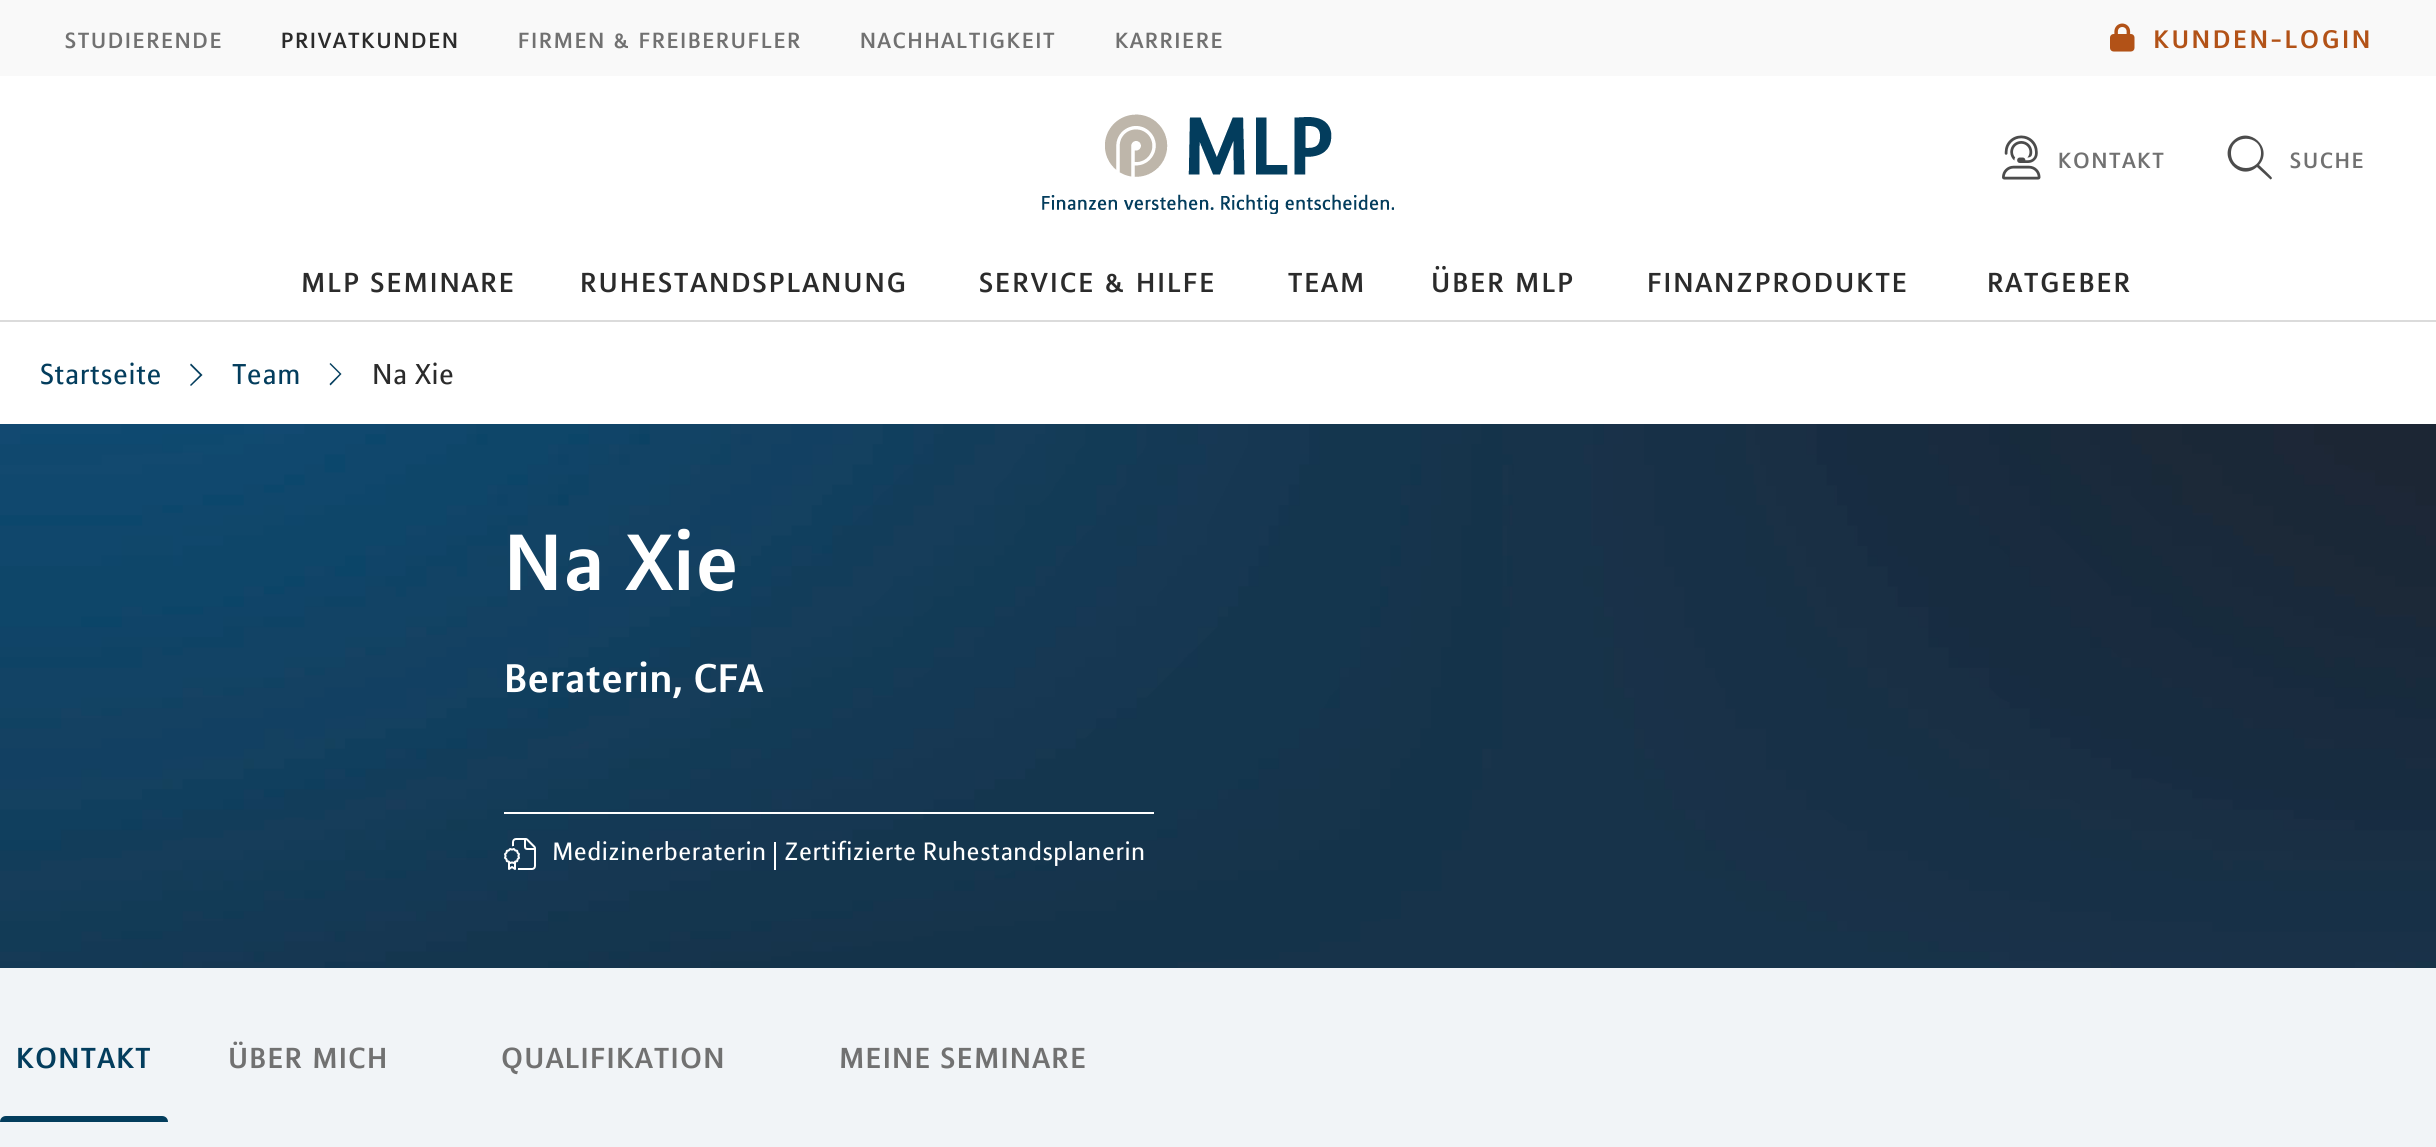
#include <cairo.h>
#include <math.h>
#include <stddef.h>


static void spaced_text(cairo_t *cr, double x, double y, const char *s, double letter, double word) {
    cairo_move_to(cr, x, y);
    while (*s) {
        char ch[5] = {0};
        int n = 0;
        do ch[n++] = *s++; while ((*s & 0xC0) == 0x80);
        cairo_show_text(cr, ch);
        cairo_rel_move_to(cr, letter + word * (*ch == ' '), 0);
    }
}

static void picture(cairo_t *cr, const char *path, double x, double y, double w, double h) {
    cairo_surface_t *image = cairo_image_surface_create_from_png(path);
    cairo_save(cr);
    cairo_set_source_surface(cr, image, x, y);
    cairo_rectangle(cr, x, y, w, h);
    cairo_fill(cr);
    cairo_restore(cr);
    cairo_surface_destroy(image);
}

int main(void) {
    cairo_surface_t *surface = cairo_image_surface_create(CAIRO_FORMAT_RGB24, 2436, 1147);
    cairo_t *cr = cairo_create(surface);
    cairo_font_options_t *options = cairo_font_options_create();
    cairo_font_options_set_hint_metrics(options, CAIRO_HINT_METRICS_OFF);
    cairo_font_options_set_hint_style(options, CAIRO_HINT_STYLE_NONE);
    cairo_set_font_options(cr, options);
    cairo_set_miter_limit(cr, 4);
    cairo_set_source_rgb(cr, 1, 1, 1);
    cairo_paint(cr);
    cairo_set_source_rgb(cr, 0.859, 0.859, 0.859);
    cairo_rectangle(cr, 0, 320, 2436, 2);
    cairo_fill(cr);
    cairo_set_source_rgb(cr, 0.973, 0.973, 0.973);
    cairo_rectangle(cr, 0, 0, 2436, 76);
    cairo_fill(cr);
    cairo_select_font_face(cr, "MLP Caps", CAIRO_FONT_SLANT_NORMAL, CAIRO_FONT_WEIGHT_NORMAL);
    cairo_set_font_size(cr, 32);
    cairo_set_source_rgb(cr, 0.443, 0.443, 0.443);
    cairo_move_to(cr, 64, 48);
    cairo_show_text(cr, "studierende");
    cairo_set_source_rgb(cr, 0.169, 0.169, 0.169);
    cairo_move_to(cr, 280, 48);
    cairo_show_text(cr, "privatkunden");
    cairo_set_source_rgb(cr, 0.443, 0.443, 0.443);
    cairo_move_to(cr, 517, 48);
    cairo_show_text(cr, "firmen & freiberufler");
    cairo_move_to(cr, 859, 48);
    cairo_show_text(cr, "nachhaltigkeit");
    cairo_move_to(cr, 1114, 48);
    cairo_show_text(cr, "karriere");
    picture(cr, "img1.png", 2110, 23, 25, 29);
    cairo_select_font_face(cr, "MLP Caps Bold", CAIRO_FONT_SLANT_NORMAL, CAIRO_FONT_WEIGHT_BOLD);
    cairo_set_font_size(cr, 28);
    cairo_set_source_rgb(cr, 0.698, 0.322, 0.09);
    spaced_text(cr, 2153, 48, "KUNDEN-LOGIN", 2, 0);
    picture(cr, "img2.png", 1042, 114, 352, 100);
    picture(cr, "img3.png", 2002, 135, 39, 45);
    cairo_select_font_face(cr, "MLP Caps", CAIRO_FONT_SLANT_NORMAL, CAIRO_FONT_WEIGHT_NORMAL);
    cairo_set_font_size(cr, 32);
    cairo_set_source_rgb(cr, 0.443, 0.443, 0.443);
    cairo_move_to(cr, 2057, 168);
    cairo_show_text(cr, "kontakt");
    cairo_set_source_rgb(cr, 0.298, 0.298, 0.298);
    cairo_new_path(cr);
    cairo_move_to(cr, 2261, 153);
    cairo_curve_to(cr, 2261, 134, 2231, 134, 2231, 153);
    cairo_curve_to(cr, 2231, 173, 2261, 173, 2261, 153);
    cairo_close_path(cr);
    cairo_move_to(cr, 2257, 167);
    cairo_curve_to(cr, 2240, 182, 2217, 157, 2233, 141);
    cairo_curve_to(cr, 2249, 125, 2274, 148, 2259, 165);
    cairo_curve_to(cr, 2261, 167, 2272, 177, 2272, 178);
    cairo_curve_to(cr, 2272, 179, 2270, 180, 2270, 179);
    cairo_close_path(cr);
    cairo_fill(cr);
    cairo_set_source_rgb(cr, 0.443, 0.443, 0.443);
    cairo_move_to(cr, 2289, 168);
    cairo_show_text(cr, "suche");
    cairo_set_font_size(cr, 40);
    cairo_set_source_rgb(cr, 0.169, 0.169, 0.169);
    cairo_move_to(cr, 300, 292);
    cairo_show_text(cr, "mlp seminare");
    cairo_move_to(cr, 579, 292);
    cairo_show_text(cr, "ruhestandsplanung");
    cairo_move_to(cr, 978, 292);
    cairo_show_text(cr, "service & hilfe");
    cairo_move_to(cr, 1287, 292);
    cairo_show_text(cr, "team");
    cairo_move_to(cr, 1430, 292);
    cairo_show_text(cr, "über mlp");
    cairo_move_to(cr, 1646, 292);
    cairo_show_text(cr, "finanzprodukte");
    cairo_move_to(cr, 1986, 292);
    cairo_show_text(cr, "ratgeber");
    cairo_set_source_rgb(cr, 0.945, 0.957, 0.965);
    cairo_rectangle(cr, 0, 968, 2436, 179);
    cairo_fill(cr);
    cairo_select_font_face(cr, "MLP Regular", CAIRO_FONT_SLANT_NORMAL, CAIRO_FONT_WEIGHT_NORMAL);
    cairo_set_font_size(cr, 32);
    cairo_set_source_rgb(cr, 0.012, 0.239, 0.365);
    cairo_move_to(cr, 40, 384);
    cairo_show_text(cr, "Startseite");
    cairo_new_path(cr);
    cairo_move_to(cr, 202.5, 375);
    cairo_line_to(cr, 191, 386);
    cairo_line_to(cr, 190, 385);
    cairo_line_to(cr, 200, 375);
    cairo_line_to(cr, 190, 365);
    cairo_line_to(cr, 191, 363.5);
    cairo_close_path(cr);
    cairo_fill(cr);
    cairo_move_to(cr, 232, 384);
    cairo_show_text(cr, "Team");
    cairo_new_path(cr);
    cairo_move_to(cr, 341.5, 374);
    cairo_line_to(cr, 330.5, 385.5);
    cairo_line_to(cr, 329.5, 384);
    cairo_line_to(cr, 339.5, 374);
    cairo_line_to(cr, 329.5, 364);
    cairo_line_to(cr, 330.5, 363);
    cairo_close_path(cr);
    cairo_fill(cr);
    cairo_set_source_rgb(cr, 0.169, 0.169, 0.169);
    cairo_move_to(cr, 372, 384);
    cairo_show_text(cr, "Na Xie");
    picture(cr, "img4.png", 0, 424, 2436, 544);
    cairo_select_font_face(cr, "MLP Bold", CAIRO_FONT_SLANT_NORMAL, CAIRO_FONT_WEIGHT_BOLD);
    cairo_set_font_size(cr, 88);
    cairo_set_source_rgb(cr, 1, 1, 1);
    cairo_move_to(cr, 504, 590);
    cairo_show_text(cr, "Na Xie");
    cairo_set_font_size(cr, 44);
    cairo_move_to(cr, 504, 692);
    cairo_show_text(cr, "Beraterin, CFA");
    cairo_rectangle(cr, 504, 812, 650, 2);
    cairo_fill(cr);
    picture(cr, "img5.png", 504, 838, 32, 32);
    cairo_select_font_face(cr, "MLP Regular", CAIRO_FONT_SLANT_NORMAL, CAIRO_FONT_WEIGHT_NORMAL);
    cairo_set_font_size(cr, 28);
    cairo_move_to(cr, 552, 860);
    cairo_show_text(cr, "Medizinerberaterin");
    cairo_rectangle(cr, 774, 842, 2, 28);
    cairo_fill(cr);
    cairo_move_to(cr, 784, 860);
    cairo_show_text(cr, "Zertifizierte Ruhestandsplanerin");
    cairo_select_font_face(cr, "MLP Bold", CAIRO_FONT_SLANT_NORMAL, CAIRO_FONT_WEIGHT_BOLD);
    cairo_set_font_size(cr, 32);
    cairo_set_source_rgb(cr, 0.012, 0.239, 0.365);
    spaced_text(cr, 16, 1068, "KONTAKT", 1.25, 0);
    cairo_new_path(cr);
    cairo_move_to(cr, 6, 1116);
    cairo_line_to(cr, 162, 1116);
    cairo_curve_to(cr, 165.5, 1116, 168, 1118.5, 168, 1122);
    cairo_line_to(cr, 0, 1122);
    cairo_curve_to(cr, 0, 1118.5, 2.5, 1116, 6, 1116);
    cairo_close_path(cr);
    cairo_fill(cr);
    cairo_set_source_rgb(cr, 0.443, 0.443, 0.443);
    spaced_text(cr, 228, 1068, "ÜBER MICH", 1.25, 0);
    spaced_text(cr, 501, 1068, "QUALIFIKATION", 1.25, 0);
    spaced_text(cr, 839, 1068, "MEINE SEMINARE", 1.25, 0);
    cairo_surface_write_to_png(surface, "page.png");
    cairo_font_options_destroy(options);
    cairo_destroy(cr);
    cairo_surface_destroy(surface);
    return 0;
}
